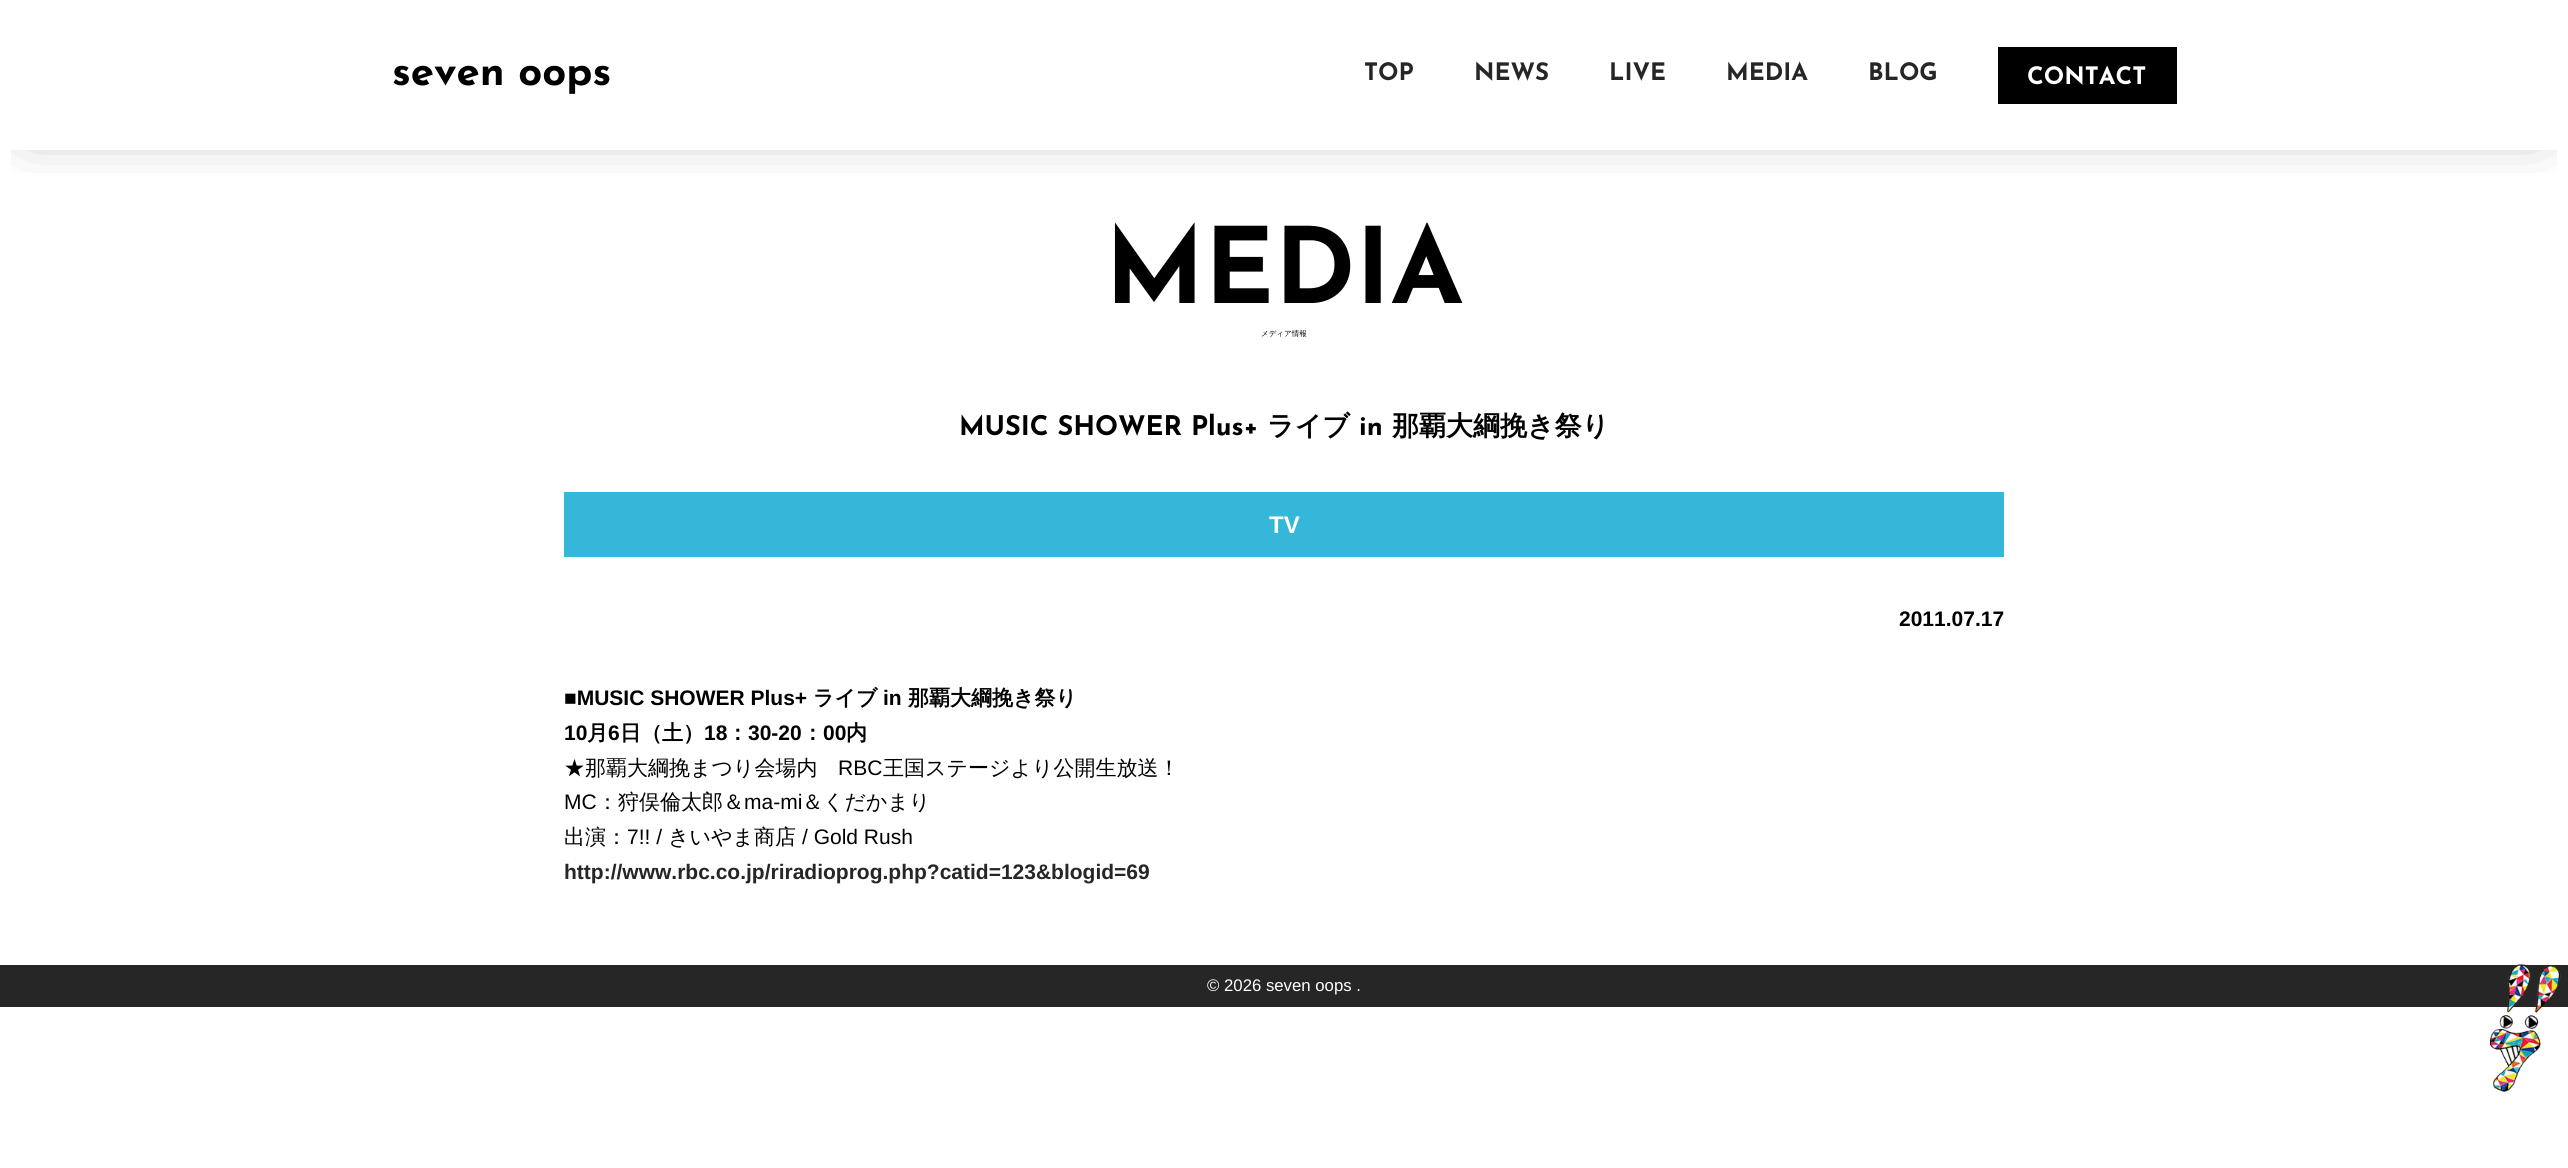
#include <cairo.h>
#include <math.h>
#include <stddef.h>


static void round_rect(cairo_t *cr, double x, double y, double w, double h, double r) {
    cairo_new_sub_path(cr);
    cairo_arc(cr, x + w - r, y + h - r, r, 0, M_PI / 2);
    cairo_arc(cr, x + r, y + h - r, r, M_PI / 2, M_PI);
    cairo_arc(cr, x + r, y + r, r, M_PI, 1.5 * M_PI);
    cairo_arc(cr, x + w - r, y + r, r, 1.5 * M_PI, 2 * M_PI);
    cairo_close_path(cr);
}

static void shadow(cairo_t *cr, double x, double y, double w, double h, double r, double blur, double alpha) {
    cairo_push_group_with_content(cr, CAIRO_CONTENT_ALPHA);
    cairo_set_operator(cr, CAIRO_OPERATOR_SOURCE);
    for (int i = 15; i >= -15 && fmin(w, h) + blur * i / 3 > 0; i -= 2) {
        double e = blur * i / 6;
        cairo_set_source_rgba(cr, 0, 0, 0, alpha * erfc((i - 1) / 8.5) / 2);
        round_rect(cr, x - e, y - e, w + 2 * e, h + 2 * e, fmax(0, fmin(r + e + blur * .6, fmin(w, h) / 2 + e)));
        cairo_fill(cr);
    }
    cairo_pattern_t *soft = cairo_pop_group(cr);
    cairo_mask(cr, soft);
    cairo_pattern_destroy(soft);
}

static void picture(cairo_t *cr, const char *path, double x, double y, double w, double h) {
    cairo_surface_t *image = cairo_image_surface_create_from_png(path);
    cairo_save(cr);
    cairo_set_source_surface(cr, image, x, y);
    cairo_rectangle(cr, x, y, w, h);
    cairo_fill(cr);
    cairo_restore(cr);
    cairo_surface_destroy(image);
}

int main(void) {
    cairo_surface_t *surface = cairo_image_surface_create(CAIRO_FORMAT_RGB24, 2568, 1168);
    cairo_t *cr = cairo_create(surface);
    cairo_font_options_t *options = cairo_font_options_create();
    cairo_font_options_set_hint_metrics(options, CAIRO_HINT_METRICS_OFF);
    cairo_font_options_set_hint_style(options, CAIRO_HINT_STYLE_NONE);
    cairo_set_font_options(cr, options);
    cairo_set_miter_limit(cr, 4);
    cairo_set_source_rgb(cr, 1, 1, 1);
    cairo_paint(cr);
    cairo_save(cr);
    cairo_rectangle(cr, 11, 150, 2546, 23);
    cairo_clip(cr);
    cairo_set_source_rgb(cr, 0, 0, 0);
    shadow(cr, 30, 30, 2508, 90, 0, 30, 0.5);
    cairo_restore(cr);
    cairo_select_font_face(cr, "Josefin Sans", CAIRO_FONT_SLANT_NORMAL, CAIRO_FONT_WEIGHT_BOLD);
    cairo_set_font_size(cr, 42);
    cairo_set_source_rgb(cr, 0, 0, 0);
    cairo_move_to(cr, 392, 85);
    cairo_show_text(cr, "seven oops");
    cairo_set_font_size(cr, 24);
    cairo_set_source_rgb(cr, 0.149, 0.149, 0.149);
    cairo_move_to(cr, 1364, 80);
    cairo_show_text(cr, "TOP");
    cairo_move_to(cr, 1474, 80);
    cairo_show_text(cr, "NEWS");
    cairo_move_to(cr, 1609, 80);
    cairo_show_text(cr, "LIVE");
    cairo_move_to(cr, 1726, 80);
    cairo_show_text(cr, "MEDIA");
    cairo_move_to(cr, 1868, 80);
    cairo_show_text(cr, "BLOG");
    cairo_set_source_rgb(cr, 0, 0, 0);
    cairo_rectangle(cr, 1998, 47, 179, 57);
    cairo_fill(cr);
    cairo_set_source_rgb(cr, 1, 1, 1);
    cairo_move_to(cr, 2027, 84);
    cairo_show_text(cr, "CONTACT");
    cairo_set_font_size(cr, 105);
    cairo_set_source_rgb(cr, 0, 0, 0);
    cairo_move_to(cr, 1105, 303);
    cairo_show_text(cr, "MEDIA");
    cairo_select_font_face(cr, "WenQuanYi Zen Hei Medium", CAIRO_FONT_SLANT_NORMAL, CAIRO_FONT_WEIGHT_NORMAL);
    cairo_set_font_size(cr, 7.5);
    cairo_move_to(cr, 1261, 336);
    cairo_show_text(cr, "メディア情報");
    cairo_select_font_face(cr, "Josefin Sans", CAIRO_FONT_SLANT_NORMAL, CAIRO_FONT_WEIGHT_BOLD);
    cairo_set_font_size(cr, 27);
    cairo_move_to(cr, 959, 435);
    cairo_show_text(cr, "MUSIC SHOWER Plus+");
    cairo_select_font_face(cr, "WenQuanYi Zen Hei", CAIRO_FONT_SLANT_NORMAL, CAIRO_FONT_WEIGHT_BOLD);
    cairo_move_to(cr, 1267, 435);
    cairo_show_text(cr, "ライブ");
    cairo_select_font_face(cr, "Josefin Sans", CAIRO_FONT_SLANT_NORMAL, CAIRO_FONT_WEIGHT_BOLD);
    cairo_move_to(cr, 1359, 435);
    cairo_show_text(cr, "in");
    cairo_select_font_face(cr, "WenQuanYi Zen Hei", CAIRO_FONT_SLANT_NORMAL, CAIRO_FONT_WEIGHT_BOLD);
    cairo_move_to(cr, 1392, 435);
    cairo_show_text(cr, "那覇大綱挽き祭り");
    cairo_set_source_rgb(cr, 0.204, 0.718, 0.851);
    cairo_rectangle(cr, 564, 492, 1440, 65);
    cairo_fill(cr);
    cairo_select_font_face(cr, "Liberation Sans", CAIRO_FONT_SLANT_NORMAL, CAIRO_FONT_WEIGHT_BOLD);
    cairo_set_font_size(cr, 24);
    cairo_set_source_rgb(cr, 1, 1, 1);
    cairo_move_to(cr, 1269, 533);
    cairo_show_text(cr, "TV");
    cairo_set_font_size(cr, 21);
    cairo_set_source_rgb(cr, 0, 0, 0);
    cairo_move_to(cr, 1899, 626);
    cairo_show_text(cr, "2011.07.17");
    cairo_move_to(cr, 564, 705);
    cairo_show_text(cr, "■MUSIC SHOWER Plus+");
    cairo_select_font_face(cr, "WenQuanYi Zen Hei", CAIRO_FONT_SLANT_NORMAL, CAIRO_FONT_WEIGHT_BOLD);
    cairo_move_to(cr, 813, 705);
    cairo_show_text(cr, "ライブ");
    cairo_select_font_face(cr, "Liberation Sans", CAIRO_FONT_SLANT_NORMAL, CAIRO_FONT_WEIGHT_BOLD);
    cairo_move_to(cr, 883, 705);
    cairo_show_text(cr, "in");
    cairo_select_font_face(cr, "WenQuanYi Zen Hei", CAIRO_FONT_SLANT_NORMAL, CAIRO_FONT_WEIGHT_BOLD);
    cairo_move_to(cr, 908, 705);
    cairo_show_text(cr, "那覇大綱挽き祭り");
    cairo_select_font_face(cr, "Liberation Sans", CAIRO_FONT_SLANT_NORMAL, CAIRO_FONT_WEIGHT_BOLD);
    cairo_move_to(cr, 564, 740);
    cairo_show_text(cr, "10");
    cairo_select_font_face(cr, "WenQuanYi Zen Hei", CAIRO_FONT_SLANT_NORMAL, CAIRO_FONT_WEIGHT_BOLD);
    cairo_move_to(cr, 587, 740);
    cairo_show_text(cr, "月");
    cairo_select_font_face(cr, "Liberation Sans", CAIRO_FONT_SLANT_NORMAL, CAIRO_FONT_WEIGHT_BOLD);
    cairo_move_to(cr, 608, 740);
    cairo_show_text(cr, "6");
    cairo_select_font_face(cr, "WenQuanYi Zen Hei", CAIRO_FONT_SLANT_NORMAL, CAIRO_FONT_WEIGHT_BOLD);
    cairo_move_to(cr, 620, 740);
    cairo_show_text(cr, "日（土）");
    cairo_select_font_face(cr, "Liberation Sans", CAIRO_FONT_SLANT_NORMAL, CAIRO_FONT_WEIGHT_BOLD);
    cairo_move_to(cr, 704, 740);
    cairo_show_text(cr, "18");
    cairo_select_font_face(cr, "WenQuanYi Zen Hei", CAIRO_FONT_SLANT_NORMAL, CAIRO_FONT_WEIGHT_BOLD);
    cairo_move_to(cr, 727, 740);
    cairo_show_text(cr, "：");
    cairo_select_font_face(cr, "Liberation Sans", CAIRO_FONT_SLANT_NORMAL, CAIRO_FONT_WEIGHT_BOLD);
    cairo_move_to(cr, 748, 740);
    cairo_show_text(cr, "30-20");
    cairo_select_font_face(cr, "WenQuanYi Zen Hei", CAIRO_FONT_SLANT_NORMAL, CAIRO_FONT_WEIGHT_BOLD);
    cairo_move_to(cr, 802, 740);
    cairo_show_text(cr, "：");
    cairo_select_font_face(cr, "Liberation Sans", CAIRO_FONT_SLANT_NORMAL, CAIRO_FONT_WEIGHT_BOLD);
    cairo_move_to(cr, 823, 740);
    cairo_show_text(cr, "00");
    cairo_select_font_face(cr, "WenQuanYi Zen Hei", CAIRO_FONT_SLANT_NORMAL, CAIRO_FONT_WEIGHT_BOLD);
    cairo_move_to(cr, 846, 740);
    cairo_show_text(cr, "内");
    cairo_select_font_face(cr, "WenQuanYi Zen Hei Medium", CAIRO_FONT_SLANT_NORMAL, CAIRO_FONT_WEIGHT_NORMAL);
    cairo_move_to(cr, 564, 775);
    cairo_show_text(cr, "★那覇大綱挽まつり会場内");
    cairo_select_font_face(cr, "Liberation Sans", CAIRO_FONT_SLANT_NORMAL, CAIRO_FONT_WEIGHT_NORMAL);
    cairo_move_to(cr, 838, 775);
    cairo_show_text(cr, "RBC");
    cairo_select_font_face(cr, "WenQuanYi Zen Hei Medium", CAIRO_FONT_SLANT_NORMAL, CAIRO_FONT_WEIGHT_NORMAL);
    cairo_move_to(cr, 883, 775);
    cairo_show_text(cr, "王国ステージより公開生放送！");
    cairo_select_font_face(cr, "Liberation Sans", CAIRO_FONT_SLANT_NORMAL, CAIRO_FONT_WEIGHT_NORMAL);
    cairo_move_to(cr, 564, 809);
    cairo_show_text(cr, "MC");
    cairo_select_font_face(cr, "WenQuanYi Zen Hei Medium", CAIRO_FONT_SLANT_NORMAL, CAIRO_FONT_WEIGHT_NORMAL);
    cairo_move_to(cr, 597, 809);
    cairo_show_text(cr, "：狩俣倫太郎＆");
    cairo_select_font_face(cr, "Liberation Sans", CAIRO_FONT_SLANT_NORMAL, CAIRO_FONT_WEIGHT_NORMAL);
    cairo_move_to(cr, 744, 809);
    cairo_show_text(cr, "ma-mi");
    cairo_select_font_face(cr, "WenQuanYi Zen Hei Medium", CAIRO_FONT_SLANT_NORMAL, CAIRO_FONT_WEIGHT_NORMAL);
    cairo_move_to(cr, 802, 809);
    cairo_show_text(cr, "＆くだかまり");
    cairo_move_to(cr, 564, 844);
    cairo_show_text(cr, "出演：");
    cairo_select_font_face(cr, "Liberation Sans", CAIRO_FONT_SLANT_NORMAL, CAIRO_FONT_WEIGHT_NORMAL);
    cairo_move_to(cr, 627, 844);
    cairo_show_text(cr, "7!! /");
    cairo_select_font_face(cr, "WenQuanYi Zen Hei Medium", CAIRO_FONT_SLANT_NORMAL, CAIRO_FONT_WEIGHT_NORMAL);
    cairo_move_to(cr, 668, 844);
    cairo_show_text(cr, "きいやま商店");
    cairo_select_font_face(cr, "Liberation Sans", CAIRO_FONT_SLANT_NORMAL, CAIRO_FONT_WEIGHT_NORMAL);
    cairo_move_to(cr, 802, 844);
    cairo_show_text(cr, "/ Gold Rush");
    cairo_select_font_face(cr, "Liberation Sans", CAIRO_FONT_SLANT_NORMAL, CAIRO_FONT_WEIGHT_BOLD);
    cairo_set_source_rgb(cr, 0.149, 0.149, 0.149);
    cairo_move_to(cr, 564, 879);
    cairo_show_text(cr, "http://www.rbc.co.jp/riradioprog.php?catid=123&blogid=69");
    cairo_rectangle(cr, 0, 965, 2568, 42);
    cairo_fill(cr);
    cairo_select_font_face(cr, "Liberation Sans", CAIRO_FONT_SLANT_NORMAL, CAIRO_FONT_WEIGHT_NORMAL);
    cairo_set_font_size(cr, 16.75);
    cairo_set_source_rgb(cr, 1, 1, 1);
    cairo_move_to(cr, 1207, 991);
    cairo_show_text(cr, "© 2026 seven oops .");
    picture(cr, "img1.png", 2499, 964, 62, 65);
    picture(cr, "img2.png", 2490, 1029, 51, 63);
    cairo_surface_write_to_png(surface, "page.png");
    cairo_font_options_destroy(options);
    cairo_destroy(cr);
    cairo_surface_destroy(surface);
    return 0;
}
